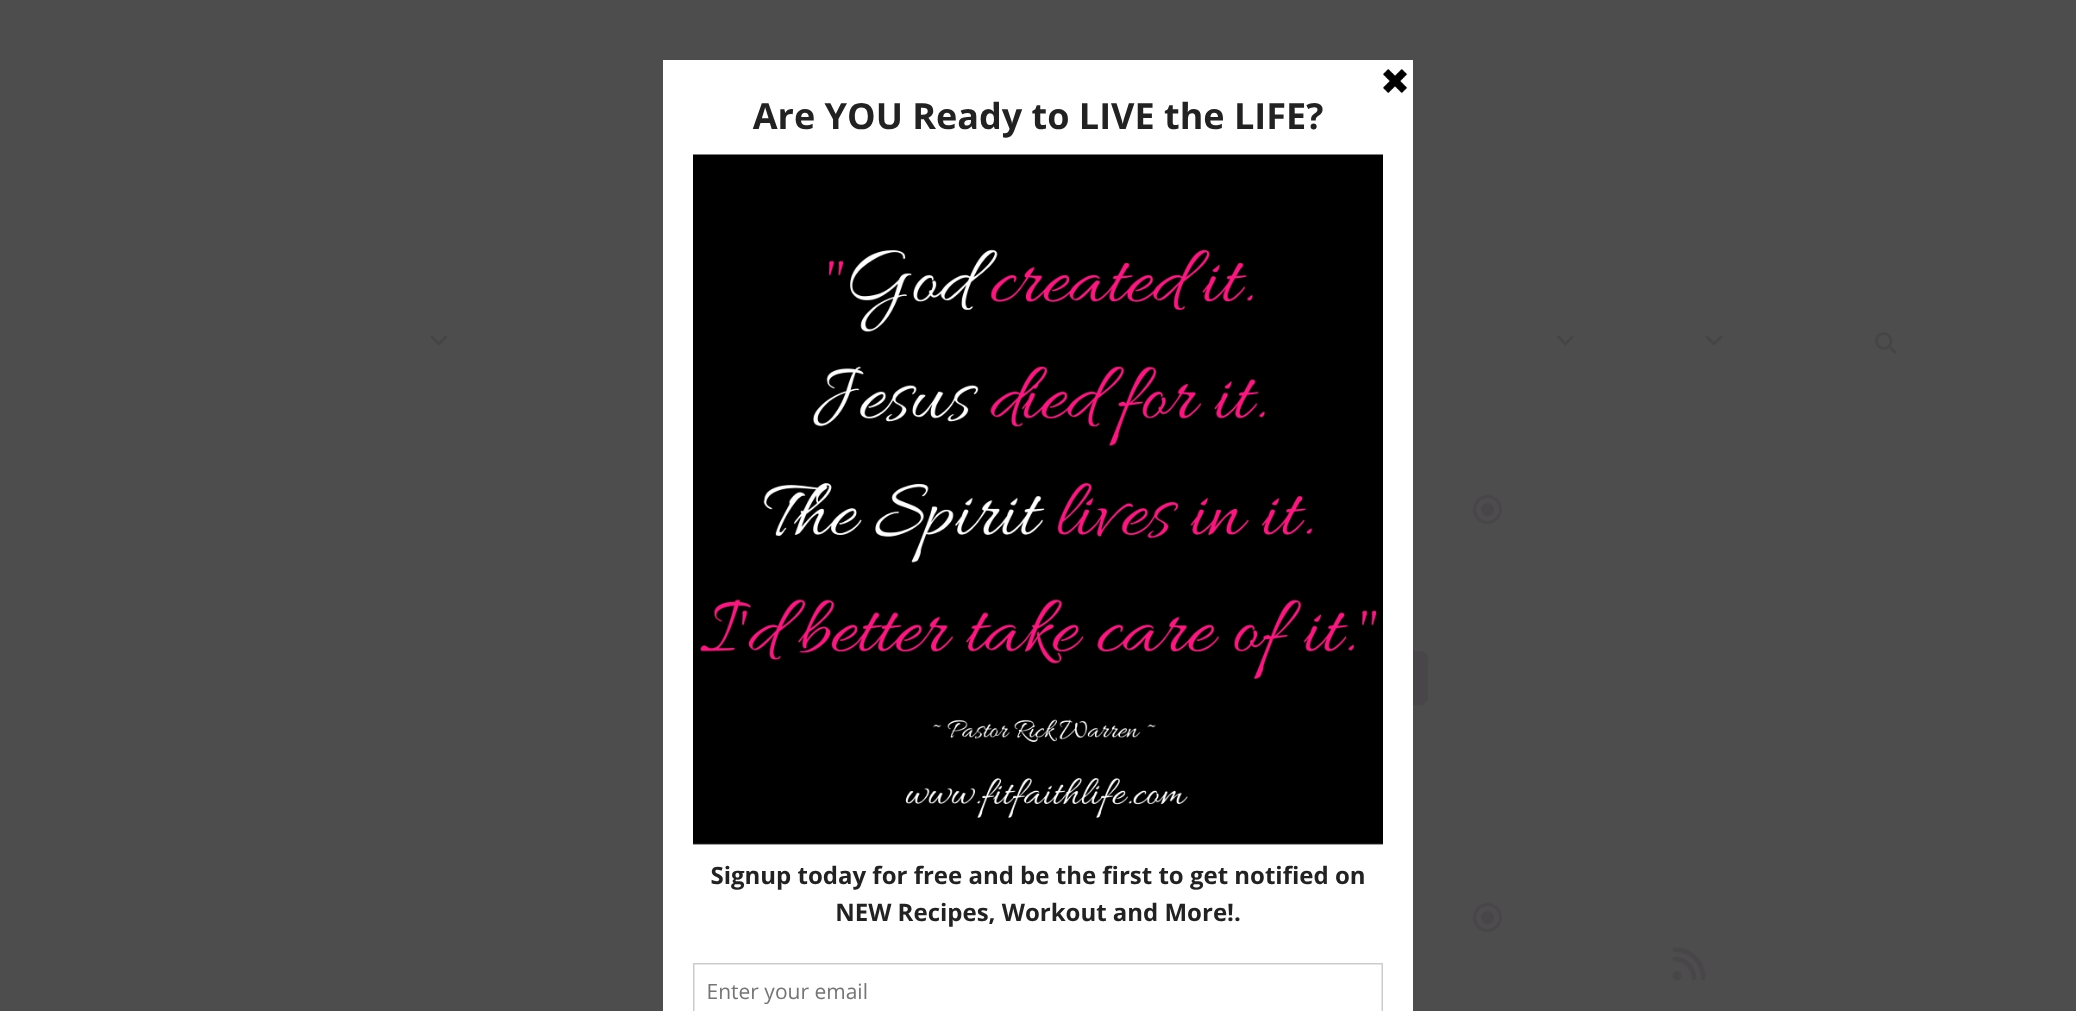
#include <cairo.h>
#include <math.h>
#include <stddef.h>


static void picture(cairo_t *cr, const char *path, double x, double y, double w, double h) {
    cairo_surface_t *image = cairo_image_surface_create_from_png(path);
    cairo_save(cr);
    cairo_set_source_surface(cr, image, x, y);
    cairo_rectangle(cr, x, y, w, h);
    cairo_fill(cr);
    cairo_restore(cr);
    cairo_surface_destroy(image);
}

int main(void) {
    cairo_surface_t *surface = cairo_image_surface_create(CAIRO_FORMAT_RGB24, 2076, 1011);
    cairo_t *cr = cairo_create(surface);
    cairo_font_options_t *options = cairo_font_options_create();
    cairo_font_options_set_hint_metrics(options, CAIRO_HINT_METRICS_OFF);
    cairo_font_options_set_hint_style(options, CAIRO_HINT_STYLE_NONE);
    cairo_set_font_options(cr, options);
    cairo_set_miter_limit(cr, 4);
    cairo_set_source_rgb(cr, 0.302, 0.302, 0.302);
    cairo_paint(cr);
    cairo_set_source_rgb(cr, 0.286, 0.275, 0.286);
    cairo_new_path(cr);
    cairo_move_to(cr, 1326, 651);
    cairo_line_to(cr, 1420, 651);
    cairo_curve_to(cr, 1424.5, 651, 1428, 654.5, 1428, 659);
    cairo_line_to(cr, 1428, 697);
    cairo_curve_to(cr, 1428, 701.5, 1424.5, 705, 1420, 705);
    cairo_line_to(cr, 1326, 705);
    cairo_close_path(cr);
    cairo_fill(cr);
    picture(cr, "img1.png", 663, 60, 750, 951);
    picture(cr, "img2.png", 430, 335, 18, 11);
    picture(cr, "img3.png", 1556, 335, 18, 11);
    picture(cr, "img2.png", 1705, 335, 18, 11);
    picture(cr, "img4.png", 1875, 332, 22, 22);
    cairo_arc(cr, 1487.5, 509.5, 14.5, 0, 2 * M_PI);
    cairo_fill(cr);
    cairo_arc(cr, 1487.5, 509.5, 9, 0, 2 * M_PI);
    cairo_set_source_rgb(cr, 0.302, 0.302, 0.302);
    cairo_set_line_width(cr, 5);
    cairo_stroke(cr);
    cairo_set_source_rgb(cr, 0.286, 0.275, 0.286);
    cairo_arc(cr, 1487.5, 917.5, 14.5, 0, 2 * M_PI);
    cairo_fill(cr);
    cairo_arc(cr, 1487.5, 917.5, 9, 0, 2 * M_PI);
    cairo_set_source_rgb(cr, 0.302, 0.302, 0.302);
    cairo_stroke(cr);
    picture(cr, "img5.png", 1672, 947, 34, 34);
    cairo_surface_write_to_png(surface, "page.png");
    cairo_font_options_destroy(options);
    cairo_destroy(cr);
    cairo_surface_destroy(surface);
    return 0;
}
